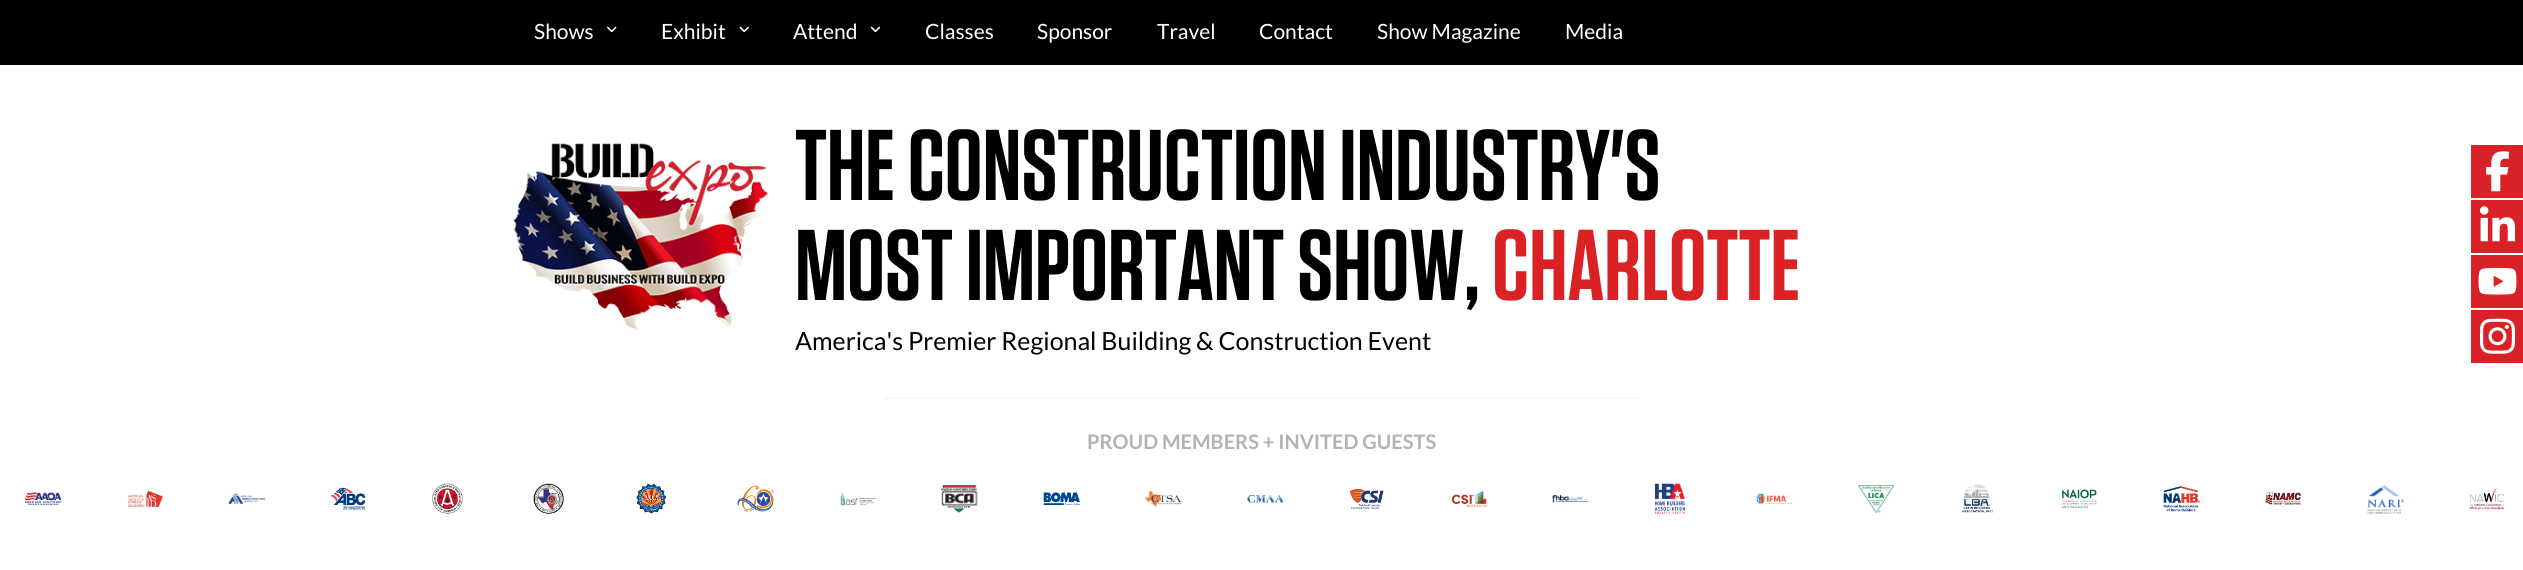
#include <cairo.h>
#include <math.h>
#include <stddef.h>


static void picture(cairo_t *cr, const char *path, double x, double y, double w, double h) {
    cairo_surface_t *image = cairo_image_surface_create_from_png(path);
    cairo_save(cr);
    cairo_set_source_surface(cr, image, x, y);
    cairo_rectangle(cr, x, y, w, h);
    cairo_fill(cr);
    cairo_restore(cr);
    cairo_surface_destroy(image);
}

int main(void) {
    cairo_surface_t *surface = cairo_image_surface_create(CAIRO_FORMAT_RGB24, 2523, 570);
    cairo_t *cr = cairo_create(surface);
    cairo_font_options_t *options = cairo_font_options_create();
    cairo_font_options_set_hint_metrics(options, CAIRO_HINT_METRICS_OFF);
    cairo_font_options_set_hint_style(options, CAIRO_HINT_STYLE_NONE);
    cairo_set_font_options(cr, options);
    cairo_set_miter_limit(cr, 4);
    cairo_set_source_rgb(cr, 1, 1, 1);
    cairo_paint(cr);
    cairo_set_source_rgb(cr, 0, 0, 0);
    cairo_rectangle(cr, 0, 0, 2523, 65);
    cairo_fill(cr);
    cairo_select_font_face(cr, "Lato", CAIRO_FONT_SLANT_NORMAL, CAIRO_FONT_WEIGHT_NORMAL);
    cairo_set_font_size(cr, 21);
    cairo_set_source_rgb(cr, 1, 1, 1);
    cairo_move_to(cr, 534, 39);
    cairo_show_text(cr, "Shows");
    picture(cr, "img1.png", 607, 26, 10, 7);
    cairo_move_to(cr, 661, 39);
    cairo_show_text(cr, "Exhibit");
    picture(cr, "img2.png", 739, 26, 10, 7);
    cairo_move_to(cr, 793, 39);
    cairo_show_text(cr, "Attend");
    picture(cr, "img3.png", 870, 26, 11, 7);
    cairo_move_to(cr, 925, 39);
    cairo_show_text(cr, "Classes");
    cairo_move_to(cr, 1037, 39);
    cairo_show_text(cr, "Sponsor");
    cairo_move_to(cr, 1157, 39);
    cairo_show_text(cr, "Travel");
    cairo_move_to(cr, 1259, 39);
    cairo_show_text(cr, "Contact");
    cairo_move_to(cr, 1377, 39);
    cairo_show_text(cr, "Show Magazine");
    cairo_move_to(cr, 1565, 39);
    cairo_show_text(cr, "Media");
    picture(cr, "img4.png", 513, 143, 255, 187);
    cairo_select_font_face(cr, "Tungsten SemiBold", CAIRO_FONT_SLANT_NORMAL, CAIRO_FONT_WEIGHT_NORMAL);
    cairo_set_font_size(cr, 100.25);
    cairo_set_source_rgb(cr, 0, 0, 0);
    cairo_move_to(cr, 795, 200);
    cairo_show_text(cr, "THE CONSTRUCTION INDUSTRY'S");
    cairo_move_to(cr, 795, 300);
    cairo_show_text(cr, "MOST IMPORTANT SHOW,");
    cairo_set_source_rgb(cr, 0.855, 0.129, 0.141);
    cairo_move_to(cr, 1492, 300);
    cairo_show_text(cr, "CHARLOTTE");
    cairo_select_font_face(cr, "Lato", CAIRO_FONT_SLANT_NORMAL, CAIRO_FONT_WEIGHT_NORMAL);
    cairo_set_font_size(cr, 25);
    cairo_set_source_rgb(cr, 0, 0, 0);
    cairo_move_to(cr, 795, 350);
    cairo_show_text(cr, "America's Premier Regional Building & Construction Event");
    cairo_set_source_rgb(cr, 0.941, 0.941, 0.941);
    cairo_rectangle(cr, 884, 398, 756, 1);
    cairo_fill(cr);
    cairo_select_font_face(cr, "Lato", CAIRO_FONT_SLANT_NORMAL, CAIRO_FONT_WEIGHT_BOLD);
    cairo_set_font_size(cr, 20);
    cairo_set_source_rgb(cr, 0.694, 0.702, 0.714);
    cairo_move_to(cr, 1087, 449);
    cairo_show_text(cr, "PROUD MEMBERS + INVITED GUESTS");
    picture(cr, "img5.png", 24, 492, 38, 13);
    picture(cr, "img6.png", 128, 490, 36, 18);
    picture(cr, "img7.png", 228, 493, 37, 11);
    picture(cr, "img8.png", 330, 487, 36, 23);
    picture(cr, "img9.png", 432, 483, 31, 31);
    picture(cr, "img10.png", 533, 483, 31, 31);
    picture(cr, "img11.png", 636, 483, 31, 31);
    picture(cr, "img12.png", 737, 485, 37, 27);
    picture(cr, "img13.png", 840, 492, 36, 14);
    picture(cr, "img14.png", 941, 485, 37, 28);
    picture(cr, "img15.png", 1043, 492, 37, 13);
    picture(cr, "img16.png", 1144, 491, 38, 16);
    picture(cr, "img17.png", 1247, 495, 37, 8);
    picture(cr, "img18.png", 1350, 488, 34, 22);
    picture(cr, "img19.png", 1451, 490, 36, 17);
    picture(cr, "img20.png", 1552, 495, 37, 8);
    picture(cr, "img21.png", 1654, 483, 31, 31);
    picture(cr, "img22.png", 1756, 493, 37, 11);
    picture(cr, "img23.png", 1858, 485, 36, 28);
    picture(cr, "img24.png", 1961, 484, 32, 29);
    picture(cr, "img25.png", 2062, 489, 35, 19);
    picture(cr, "img26.png", 2163, 486, 37, 26);
    picture(cr, "img27.png", 2265, 492, 37, 13);
    picture(cr, "img28.png", 2367, 485, 37, 29);
    picture(cr, "img29.png", 2469, 488, 35, 22);
    cairo_set_source_rgb(cr, 0.855, 0.129, 0.157);
    cairo_rectangle(cr, 2471, 145, 52, 53);
    cairo_fill(cr);
    picture(cr, "img30.png", 2486, 151, 23, 41);
    cairo_rectangle(cr, 2471, 200, 52, 53);
    cairo_fill(cr);
    picture(cr, "img31.png", 2480, 206, 35, 36);
    cairo_rectangle(cr, 2471, 255, 52, 53);
    cairo_fill(cr);
    picture(cr, "img32.png", 2478, 267, 39, 28);
    cairo_rectangle(cr, 2471, 310, 52, 53);
    cairo_fill(cr);
    picture(cr, "img33.png", 2480, 318, 35, 36);
    cairo_surface_write_to_png(surface, "page.png");
    cairo_font_options_destroy(options);
    cairo_destroy(cr);
    cairo_surface_destroy(surface);
    return 0;
}
